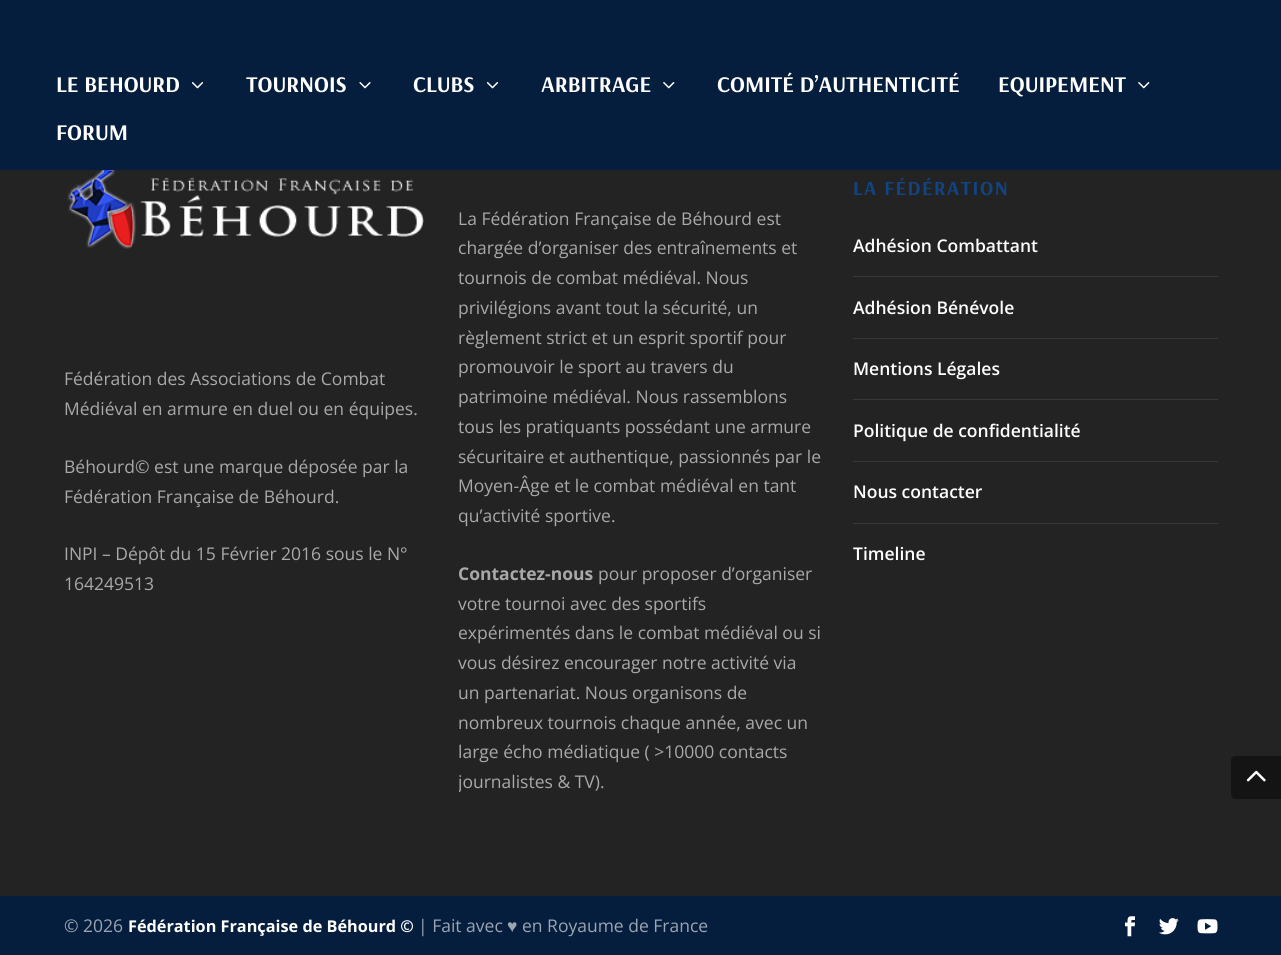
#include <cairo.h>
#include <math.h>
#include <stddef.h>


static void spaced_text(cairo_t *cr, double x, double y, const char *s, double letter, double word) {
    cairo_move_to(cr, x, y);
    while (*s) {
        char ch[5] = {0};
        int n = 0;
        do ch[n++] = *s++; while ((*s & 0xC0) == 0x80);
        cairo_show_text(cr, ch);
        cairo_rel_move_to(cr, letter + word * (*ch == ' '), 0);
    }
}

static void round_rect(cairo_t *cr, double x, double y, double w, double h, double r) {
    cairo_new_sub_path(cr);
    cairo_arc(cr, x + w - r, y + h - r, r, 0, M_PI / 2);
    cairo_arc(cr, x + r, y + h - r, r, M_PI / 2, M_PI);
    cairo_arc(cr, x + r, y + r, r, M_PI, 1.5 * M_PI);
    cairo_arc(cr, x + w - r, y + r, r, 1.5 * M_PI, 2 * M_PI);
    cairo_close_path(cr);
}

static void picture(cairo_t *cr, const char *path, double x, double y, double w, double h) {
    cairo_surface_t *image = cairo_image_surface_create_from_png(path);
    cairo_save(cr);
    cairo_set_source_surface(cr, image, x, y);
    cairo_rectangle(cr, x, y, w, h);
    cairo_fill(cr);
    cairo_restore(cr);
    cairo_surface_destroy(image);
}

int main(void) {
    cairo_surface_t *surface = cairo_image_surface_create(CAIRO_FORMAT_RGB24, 1281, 955);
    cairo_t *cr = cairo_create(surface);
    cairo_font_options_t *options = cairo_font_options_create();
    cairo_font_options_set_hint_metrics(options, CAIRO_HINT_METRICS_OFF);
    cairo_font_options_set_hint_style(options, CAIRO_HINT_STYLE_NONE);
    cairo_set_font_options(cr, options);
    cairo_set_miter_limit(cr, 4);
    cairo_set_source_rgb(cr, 0.137, 0.137, 0.137);
    cairo_paint(cr);
    cairo_set_source_rgb(cr, 0.024, 0.118, 0.243);
    cairo_rectangle(cr, 0, 0, 1281, 170);
    cairo_fill(cr);
    cairo_select_font_face(cr, "Arsenal", CAIRO_FONT_SLANT_NORMAL, CAIRO_FONT_WEIGHT_BOLD);
    cairo_set_font_size(cr, 22.5);
    cairo_set_source_rgb(cr, 1, 1, 1);
    cairo_move_to(cr, 56, 92);
    cairo_show_text(cr, "LE BEHOURD");
    picture(cr, "img1.png", 191, 82, 13, 7);
    cairo_move_to(cr, 246, 92);
    cairo_show_text(cr, "TOURNOIS");
    picture(cr, "img2.png", 359, 82, 12, 7);
    cairo_move_to(cr, 413, 92);
    cairo_show_text(cr, "CLUBS");
    picture(cr, "img1.png", 486, 82, 13, 7);
    cairo_move_to(cr, 541, 92);
    cairo_show_text(cr, "ARBITRAGE");
    picture(cr, "img3.png", 663, 82, 12, 7);
    cairo_move_to(cr, 717, 92);
    cairo_show_text(cr, "COMITÉ D’AUTHENTICITÉ");
    cairo_move_to(cr, 998, 92);
    cairo_show_text(cr, "EQUIPEMENT");
    picture(cr, "img3.png", 1138, 82, 12, 7);
    cairo_move_to(cr, 56, 140);
    cairo_show_text(cr, "FORUM");
    picture(cr, "img4.png", 67, 170, 357, 79);
    cairo_select_font_face(cr, "Open Sans", CAIRO_FONT_SLANT_NORMAL, CAIRO_FONT_WEIGHT_NORMAL);
    cairo_set_font_size(cr, 17.5);
    cairo_set_source_rgb(cr, 0.663, 0.663, 0.663);
    cairo_move_to(cr, 64, 385);
    cairo_show_text(cr, "Fédération des Associations de Combat");
    cairo_move_to(cr, 64, 415);
    cairo_show_text(cr, "Médiéval en armure en duel ou en équipes.");
    cairo_move_to(cr, 64, 473);
    cairo_show_text(cr, "Béhourd© est une marque déposée par la");
    cairo_move_to(cr, 64, 503);
    cairo_show_text(cr, "Fédération Française de Béhourd.");
    cairo_move_to(cr, 64, 560);
    cairo_show_text(cr, "INPI – Dépôt du 15 Février 2016 sous le N°");
    cairo_move_to(cr, 64, 590);
    cairo_show_text(cr, "164249513");
    cairo_move_to(cr, 458, 225);
    cairo_show_text(cr, "La Fédération Française de Béhourd est");
    cairo_move_to(cr, 458, 254);
    cairo_show_text(cr, "chargée d’organiser des entraînements et");
    cairo_move_to(cr, 458, 284);
    cairo_show_text(cr, "tournois de combat médiéval. Nous");
    cairo_move_to(cr, 458, 314);
    cairo_show_text(cr, "privilégions avant tout la sécurité, un");
    cairo_move_to(cr, 458, 344);
    cairo_show_text(cr, "règlement strict et un esprit sportif pour");
    cairo_move_to(cr, 458, 373);
    cairo_show_text(cr, "promouvoir le sport au travers du");
    cairo_move_to(cr, 458, 403);
    cairo_show_text(cr, "patrimoine médiéval. Nous rassemblons");
    cairo_move_to(cr, 458, 433);
    cairo_show_text(cr, "tous les pratiquants possédant une armure");
    cairo_move_to(cr, 458, 463);
    cairo_show_text(cr, "sécuritaire et authentique, passionnés par le");
    cairo_move_to(cr, 458, 492);
    cairo_show_text(cr, "Moyen-Âge et le combat médiéval en tant");
    cairo_move_to(cr, 458, 522);
    cairo_show_text(cr, "qu’activité sportive.");
    cairo_select_font_face(cr, "Open Sans", CAIRO_FONT_SLANT_NORMAL, CAIRO_FONT_WEIGHT_BOLD);
    cairo_move_to(cr, 458, 580);
    cairo_show_text(cr, "Contactez-nous");
    cairo_select_font_face(cr, "Open Sans", CAIRO_FONT_SLANT_NORMAL, CAIRO_FONT_WEIGHT_NORMAL);
    cairo_move_to(cr, 598, 580);
    cairo_show_text(cr, "pour proposer d’organiser");
    cairo_move_to(cr, 458, 610);
    cairo_show_text(cr, "votre tournoi avec des sportifs");
    cairo_move_to(cr, 458, 639);
    cairo_show_text(cr, "expérimentés dans le combat médiéval ou si");
    cairo_move_to(cr, 458, 669);
    cairo_show_text(cr, "vous désirez encourager notre activité via");
    cairo_move_to(cr, 458, 699);
    cairo_show_text(cr, "un partenariat. Nous organisons de");
    cairo_move_to(cr, 458, 729);
    cairo_show_text(cr, "nombreux tournois chaque année, avec un");
    cairo_move_to(cr, 458, 758);
    cairo_show_text(cr, "large écho médiatique ( >10000 contacts");
    cairo_save(cr);
    round_rect(cr, 459, 84, 364, 737, 4);
    cairo_clip(cr);
    cairo_move_to(cr, 458, 788);
    cairo_show_text(cr, "journalistes & TV).");
    cairo_restore(cr);
    cairo_select_font_face(cr, "Arsenal", CAIRO_FONT_SLANT_NORMAL, CAIRO_FONT_WEIGHT_BOLD);
    cairo_set_font_size(cr, 20);
    cairo_set_source_rgb(cr, 0.067, 0.267, 0.522);
    spaced_text(cr, 853, 195, "LA FÉDÉRATION", 1.5, 0);
    cairo_set_source_rgb(cr, 0.224, 0.224, 0.224);
    cairo_rectangle(cr, 853, 276, 365, 1);
    cairo_fill(cr);
    cairo_select_font_face(cr, "Open Sans SemiBold", CAIRO_FONT_SLANT_NORMAL, CAIRO_FONT_WEIGHT_NORMAL);
    cairo_set_font_size(cr, 17.5);
    cairo_set_source_rgb(cr, 1, 1, 1);
    cairo_move_to(cr, 853, 252);
    cairo_show_text(cr, "Adhésion Combattant");
    cairo_set_source_rgb(cr, 0.224, 0.224, 0.224);
    cairo_rectangle(cr, 853, 338, 365, 1);
    cairo_fill(cr);
    cairo_set_source_rgb(cr, 1, 1, 1);
    cairo_move_to(cr, 853, 314);
    cairo_show_text(cr, "Adhésion Bénévole");
    cairo_set_source_rgb(cr, 0.224, 0.224, 0.224);
    cairo_rectangle(cr, 853, 399, 365, 1);
    cairo_fill(cr);
    cairo_set_source_rgb(cr, 1, 1, 1);
    cairo_move_to(cr, 853, 375);
    cairo_show_text(cr, "Mentions Légales");
    cairo_set_source_rgb(cr, 0.224, 0.224, 0.224);
    cairo_rectangle(cr, 853, 461, 365, 1);
    cairo_fill(cr);
    cairo_set_source_rgb(cr, 1, 1, 1);
    cairo_move_to(cr, 853, 437);
    cairo_show_text(cr, "Politique de confidentialité");
    cairo_set_source_rgb(cr, 0.224, 0.224, 0.224);
    cairo_rectangle(cr, 853, 523, 365, 1);
    cairo_fill(cr);
    cairo_set_source_rgb(cr, 1, 1, 1);
    cairo_move_to(cr, 853, 498);
    cairo_show_text(cr, "Nous contacter");
    cairo_move_to(cr, 853, 560);
    cairo_show_text(cr, "Timeline");
    cairo_set_source_rgb(cr, 0.024, 0.118, 0.243);
    cairo_rectangle(cr, 0, 896, 1281, 59);
    cairo_fill(cr);
    cairo_select_font_face(cr, "Open Sans", CAIRO_FONT_SLANT_NORMAL, CAIRO_FONT_WEIGHT_NORMAL);
    cairo_set_source_rgb(cr, 0.608, 0.647, 0.698);
    cairo_move_to(cr, 64, 932);
    cairo_show_text(cr, "© 2026");
    cairo_select_font_face(cr, "Open Sans", CAIRO_FONT_SLANT_NORMAL, CAIRO_FONT_WEIGHT_BOLD);
    cairo_set_font_size(cr, 16.25);
    cairo_set_source_rgb(cr, 1, 1, 1);
    cairo_move_to(cr, 128, 932);
    cairo_show_text(cr, "Fédération Française de Béhourd ©");
    cairo_select_font_face(cr, "Open Sans", CAIRO_FONT_SLANT_NORMAL, CAIRO_FONT_WEIGHT_NORMAL);
    cairo_set_font_size(cr, 17.5);
    cairo_set_source_rgb(cr, 0.608, 0.647, 0.698);
    cairo_move_to(cr, 418, 932);
    cairo_show_text(cr, "| Fait avec");
    cairo_select_font_face(cr, "Liberation Sans", CAIRO_FONT_SLANT_NORMAL, CAIRO_FONT_WEIGHT_NORMAL);
    cairo_move_to(cr, 507, 932);
    cairo_show_text(cr, "♥");
    cairo_select_font_face(cr, "Open Sans", CAIRO_FONT_SLANT_NORMAL, CAIRO_FONT_WEIGHT_NORMAL);
    cairo_move_to(cr, 522, 932);
    cairo_show_text(cr, "en Royaume de France");
    picture(cr, "img5.png", 1125, 916, 10, 21);
    picture(cr, "img6.png", 1159, 918, 20, 17);
    picture(cr, "img7.png", 1197, 919, 21, 15);
    cairo_set_source_rgb(cr, 0.082, 0.082, 0.082);
    cairo_new_path(cr);
    cairo_move_to(cr, 1235, 756);
    cairo_line_to(cr, 1281, 756);
    cairo_line_to(cr, 1281, 799);
    cairo_line_to(cr, 1235, 799);
    cairo_curve_to(cr, 1233, 799, 1231, 797, 1231, 795);
    cairo_line_to(cr, 1231, 760);
    cairo_curve_to(cr, 1231, 758, 1233, 756, 1235, 756);
    cairo_close_path(cr);
    cairo_fill(cr);
    picture(cr, "img8.png", 1246, 770, 20, 12);
    cairo_surface_write_to_png(surface, "page.png");
    cairo_font_options_destroy(options);
    cairo_destroy(cr);
    cairo_surface_destroy(surface);
    return 0;
}
